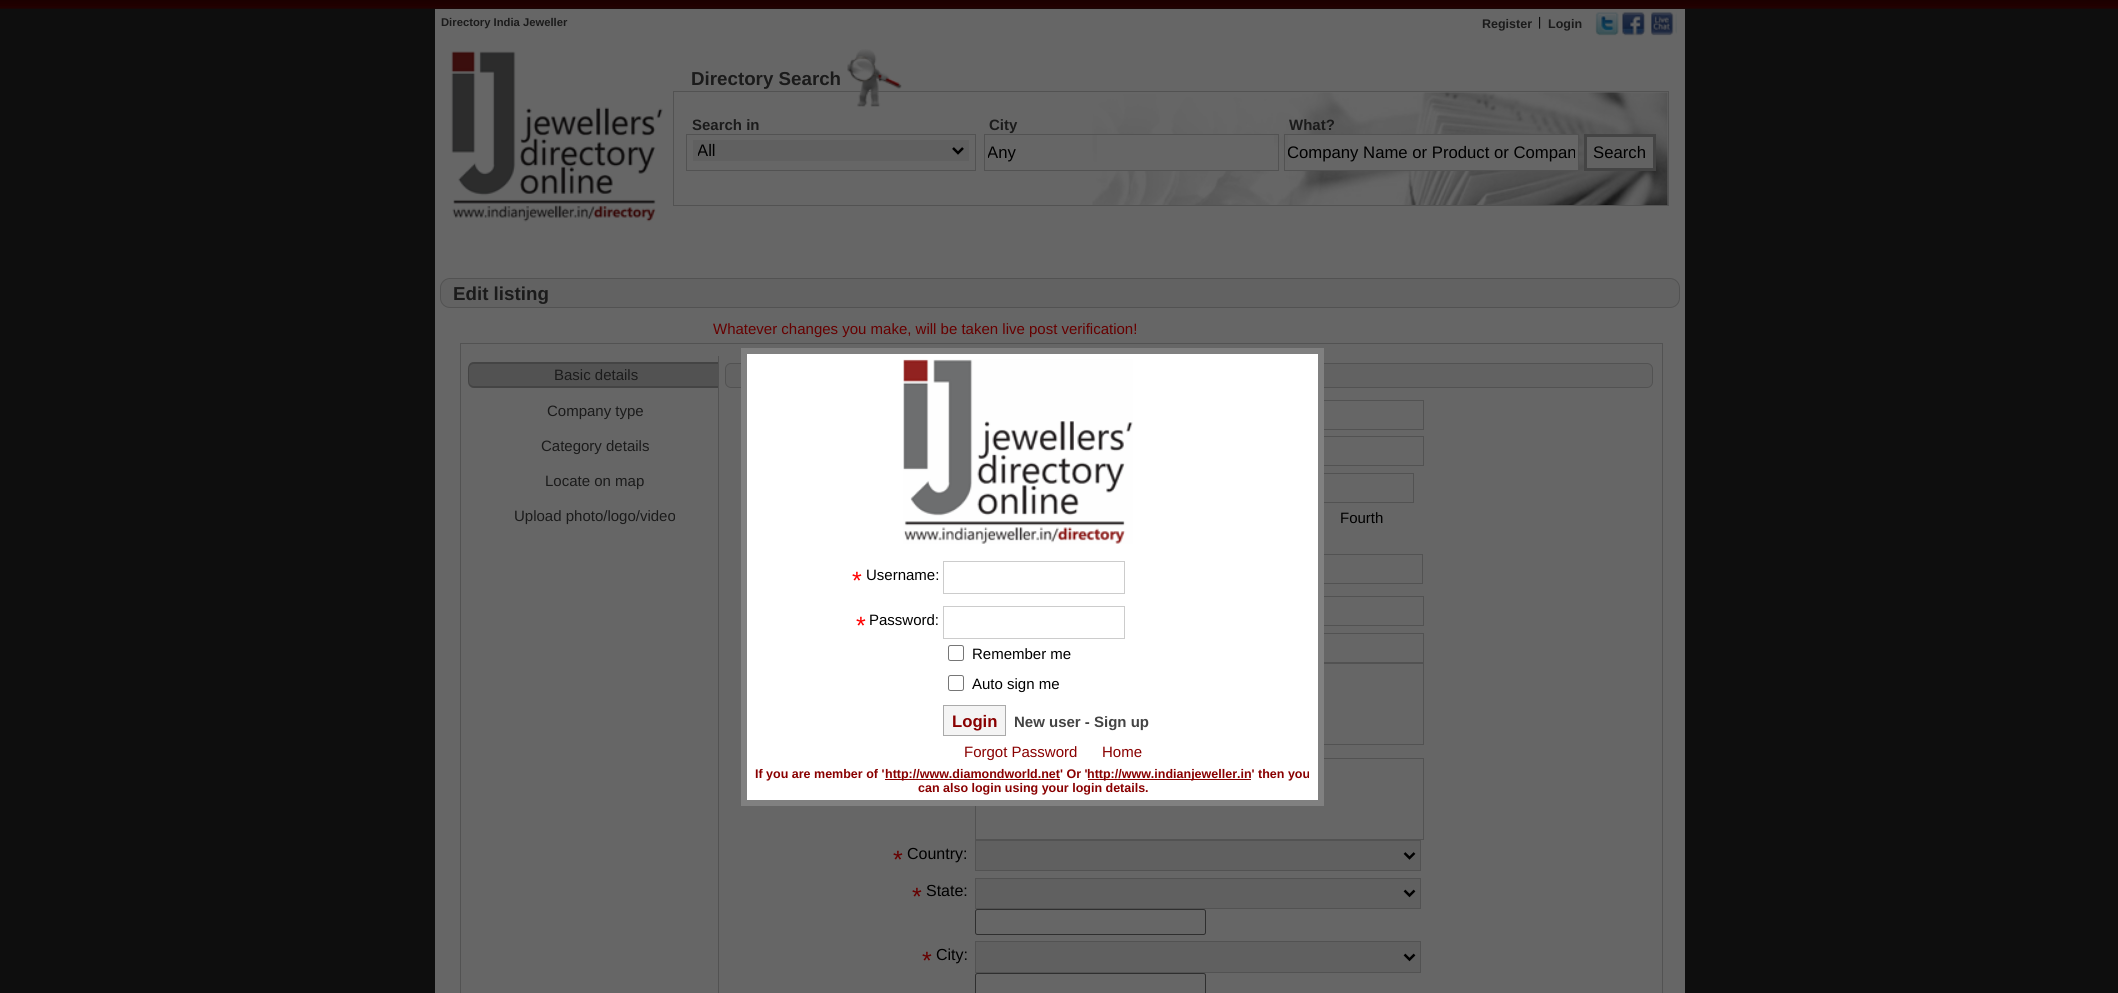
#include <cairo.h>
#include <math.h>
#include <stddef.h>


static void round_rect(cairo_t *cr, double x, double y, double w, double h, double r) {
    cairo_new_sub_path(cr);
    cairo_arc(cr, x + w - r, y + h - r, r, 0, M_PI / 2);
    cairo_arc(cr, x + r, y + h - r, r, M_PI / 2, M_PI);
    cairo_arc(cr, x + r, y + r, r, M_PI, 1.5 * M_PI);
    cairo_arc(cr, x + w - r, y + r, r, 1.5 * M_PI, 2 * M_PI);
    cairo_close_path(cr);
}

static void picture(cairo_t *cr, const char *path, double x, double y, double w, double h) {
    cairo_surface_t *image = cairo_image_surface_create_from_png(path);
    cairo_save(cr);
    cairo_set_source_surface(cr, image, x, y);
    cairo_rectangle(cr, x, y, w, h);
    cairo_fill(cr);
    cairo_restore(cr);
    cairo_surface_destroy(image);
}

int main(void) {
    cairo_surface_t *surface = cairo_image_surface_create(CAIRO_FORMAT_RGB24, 2118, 993);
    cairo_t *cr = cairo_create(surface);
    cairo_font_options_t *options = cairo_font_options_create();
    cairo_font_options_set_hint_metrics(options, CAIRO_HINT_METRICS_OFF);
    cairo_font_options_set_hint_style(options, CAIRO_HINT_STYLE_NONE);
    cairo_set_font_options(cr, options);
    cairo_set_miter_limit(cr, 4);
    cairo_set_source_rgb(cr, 0.055, 0.055, 0.055);
    cairo_paint(cr);
    picture(cr, "img1.png", 0, 0, 2118, 9);
    cairo_set_source_rgb(cr, 0.4, 0.4, 0.4);
    cairo_rectangle(cr, 435, 9, 1250, 984);
    cairo_fill(cr);
    cairo_select_font_face(cr, "Liberation Sans", CAIRO_FONT_SLANT_NORMAL, CAIRO_FONT_WEIGHT_BOLD);
    cairo_set_font_size(cr, 11.25);
    cairo_set_source_rgb(cr, 0.106, 0.106, 0.106);
    cairo_move_to(cr, 441, 26);
    cairo_show_text(cr, "Directory India Jeweller");
    cairo_set_font_size(cr, 12.5);
    cairo_move_to(cr, 1482, 28);
    cairo_show_text(cr, "Register");
    cairo_select_font_face(cr, "Liberation Sans", CAIRO_FONT_SLANT_NORMAL, CAIRO_FONT_WEIGHT_NORMAL);
    cairo_set_source_rgb(cr, 0, 0, 0);
    cairo_move_to(cr, 1538, 26);
    cairo_show_text(cr, "|");
    cairo_select_font_face(cr, "Liberation Sans", CAIRO_FONT_SLANT_NORMAL, CAIRO_FONT_WEIGHT_BOLD);
    cairo_set_source_rgb(cr, 0.106, 0.106, 0.106);
    cairo_move_to(cr, 1548, 28);
    cairo_show_text(cr, "Login");
    picture(cr, "img2.png", 1595, 11, 24, 25);
    picture(cr, "img3.png", 1622, 11, 24, 25);
    picture(cr, "img4.png", 1651, 11, 26, 25);
    picture(cr, "img5.png", 451, 51, 212, 171);
    cairo_set_font_size(cr, 18.75);
    cairo_move_to(cr, 691, 85);
    cairo_show_text(cr, "Directory Search");
    picture(cr, "img7.png", 1092, 92, 576, 113);
    cairo_rectangle(cr, 673.5, 91.5, 995, 114);
    cairo_set_source_rgb(cr, 0.322, 0.322, 0.322);
    cairo_set_line_width(cr, 1);
    cairo_stroke(cr);
    picture(cr, "img6.png", 847, 49, 55, 58);
    cairo_set_font_size(cr, 15);
    cairo_set_source_rgb(cr, 0.106, 0.106, 0.106);
    cairo_move_to(cr, 692, 130);
    cairo_show_text(cr, "Search in");
    cairo_rectangle(cr, 686.5, 134.5, 289, 36);
    cairo_set_source_rgb(cr, 0.322, 0.322, 0.322);
    cairo_stroke(cr);
    cairo_set_source_rgb(cr, 0.376, 0.376, 0.376);
    cairo_rectangle(cr, 693, 140, 276, 21);
    cairo_fill(cr);
    cairo_new_path(cr);
    cairo_move_to(cr, 953, 148);
    cairo_line_to(cr, 958, 153);
    cairo_line_to(cr, 963, 148);
    cairo_set_source_rgb(cr, 0, 0, 0);
    cairo_set_line_width(cr, 2.5);
    cairo_stroke(cr);
    cairo_save(cr);
    cairo_rectangle(cr, 698, 140, 251, 21);
    cairo_clip(cr);
    cairo_select_font_face(cr, "Liberation Sans", CAIRO_FONT_SLANT_NORMAL, CAIRO_FONT_WEIGHT_NORMAL);
    cairo_set_font_size(cr, 16.7);
    cairo_move_to(cr, 697, 156);
    cairo_show_text(cr, "All");
    cairo_restore(cr);
    cairo_set_source_rgb(cr, 0.106, 0.106, 0.106);
    cairo_move_to(cr, 989, 130);
    cairo_show_text(cr, "City");
    cairo_set_source_rgb(cr, 0.4, 0.4, 0.4);
    cairo_rectangle(cr, 1097, 135, 177, 35);
    cairo_fill(cr);
    cairo_rectangle(cr, 984.5, 134.5, 294, 36);
    cairo_set_source_rgb(cr, 0.322, 0.322, 0.322);
    cairo_set_line_width(cr, 1);
    cairo_stroke(cr);
    cairo_save(cr);
    cairo_rectangle(cr, 988, 144, 287, 19);
    cairo_clip(cr);
    cairo_select_font_face(cr, "Liberation Sans", CAIRO_FONT_SLANT_NORMAL, CAIRO_FONT_WEIGHT_NORMAL);
    cairo_set_font_size(cr, 16.7);
    cairo_set_source_rgb(cr, 0, 0, 0);
    cairo_move_to(cr, 987, 158);
    cairo_show_text(cr, "Any");
    cairo_restore(cr);
    cairo_set_source_rgb(cr, 0.106, 0.106, 0.106);
    cairo_move_to(cr, 1289, 130);
    cairo_show_text(cr, "What?");
    cairo_set_source_rgb(cr, 0.4, 0.4, 0.4);
    cairo_rectangle(cr, 1288, 135, 290, 35);
    cairo_fill(cr);
    cairo_rectangle(cr, 1284.5, 134.5, 294, 36);
    cairo_set_source_rgb(cr, 0.322, 0.322, 0.322);
    cairo_stroke(cr);
    cairo_save(cr);
    cairo_rectangle(cr, 1288, 144, 287, 19);
    cairo_clip(cr);
    cairo_select_font_face(cr, "Liberation Sans", CAIRO_FONT_SLANT_NORMAL, CAIRO_FONT_WEIGHT_NORMAL);
    cairo_set_font_size(cr, 16.7);
    cairo_set_source_rgb(cr, 0, 0, 0);
    cairo_move_to(cr, 1287, 158);
    cairo_show_text(cr, "Company Name or Product or Compan");
    cairo_restore(cr);
    cairo_set_source_rgb(cr, 0.384, 0.384, 0.384);
    cairo_rectangle(cr, 1585.5, 135.5, 69, 34);
    cairo_fill_preserve(cr);
    cairo_set_source_rgb(cr, 0.267, 0.267, 0.267);
    cairo_set_line_width(cr, 3);
    cairo_stroke(cr);
    cairo_select_font_face(cr, "Liberation Sans", CAIRO_FONT_SLANT_NORMAL, CAIRO_FONT_WEIGHT_NORMAL);
    cairo_set_font_size(cr, 16.7);
    cairo_set_source_rgb(cr, 0, 0, 0);
    cairo_move_to(cr, 1593, 158);
    cairo_show_text(cr, "Search");
    cairo_set_source_rgb(cr, 0.384, 0.384, 0.384);
    round_rect(cr, 440.5, 278.5, 1239, 29, 9.5);
    cairo_fill_preserve(cr);
    cairo_set_source_rgb(cr, 0.322, 0.322, 0.322);
    cairo_set_line_width(cr, 1);
    cairo_stroke(cr);
    cairo_select_font_face(cr, "Liberation Sans", CAIRO_FONT_SLANT_NORMAL, CAIRO_FONT_WEIGHT_BOLD);
    cairo_set_font_size(cr, 18.75);
    cairo_set_source_rgb(cr, 0.106, 0.106, 0.106);
    cairo_move_to(cr, 453, 300);
    cairo_show_text(cr, "Edit listing");
    cairo_select_font_face(cr, "Liberation Sans", CAIRO_FONT_SLANT_NORMAL, CAIRO_FONT_WEIGHT_NORMAL);
    cairo_set_font_size(cr, 15);
    cairo_set_source_rgb(cr, 0.4, 0, 0);
    cairo_move_to(cr, 713, 334);
    cairo_show_text(cr, "Whatever changes you make, will be taken live post verification!");
    cairo_rectangle(cr, 460.5, 343.5, 1202, 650);
    cairo_set_source_rgb(cr, 0.322, 0.322, 0.322);
    cairo_stroke(cr);
    cairo_new_path(cr);
    cairo_move_to(cr, 474, 363);
    cairo_line_to(cr, 719, 363);
    cairo_line_to(cr, 719, 388);
    cairo_line_to(cr, 474, 388);
    cairo_curve_to(cr, 470.5, 388, 468, 385.5, 468, 382);
    cairo_line_to(cr, 468, 369);
    cairo_curve_to(cr, 468, 365.5, 470.5, 363, 474, 363);
    cairo_close_path(cr);
    cairo_fill(cr);
    cairo_set_source_rgb(cr, 0.267, 0.267, 0.267);
    cairo_set_fill_rule(cr, CAIRO_FILL_RULE_EVEN_ODD);
    cairo_new_path(cr);
    cairo_move_to(cr, 474, 362);
    cairo_line_to(cr, 719, 362);
    cairo_line_to(cr, 719, 388);
    cairo_line_to(cr, 474, 388);
    cairo_curve_to(cr, 467, 387, 468, 380, 468, 375);
    cairo_curve_to(cr, 468, 370, 467, 362, 474, 362);
    cairo_close_path(cr);
    cairo_move_to(cr, 474, 364);
    cairo_line_to(cr, 719, 364);
    cairo_line_to(cr, 719, 386);
    cairo_line_to(cr, 474, 386);
    cairo_curve_to(cr, 471, 386, 469, 384, 469, 381);
    cairo_line_to(cr, 469, 369);
    cairo_curve_to(cr, 469, 366, 471, 364, 474, 364);
    cairo_close_path(cr);
    cairo_fill(cr);
    cairo_set_source_rgb(cr, 0.106, 0.106, 0.106);
    cairo_move_to(cr, 554, 380);
    cairo_show_text(cr, "Basic details");
    cairo_move_to(cr, 547, 416);
    cairo_show_text(cr, "Company type");
    cairo_move_to(cr, 541, 451);
    cairo_show_text(cr, "Category details");
    cairo_move_to(cr, 545, 486);
    cairo_show_text(cr, "Locate on map");
    cairo_move_to(cr, 514, 521);
    cairo_show_text(cr, "Upload photo/logo/video");
    cairo_set_source_rgb(cr, 0.322, 0.322, 0.322);
    cairo_rectangle(cr, 718, 356, 1, 637);
    cairo_fill(cr);
    cairo_set_source_rgb(cr, 0.384, 0.384, 0.384);
    round_rect(cr, 725.5, 363.5, 927, 24, 5.5);
    cairo_fill_preserve(cr);
    cairo_set_source_rgb(cr, 0.322, 0.322, 0.322);
    cairo_stroke(cr);
    cairo_rectangle(cr, 975.5, 400.5, 448, 29);
    cairo_stroke(cr);
    cairo_rectangle(cr, 975.5, 436.5, 448, 29);
    cairo_stroke(cr);
    cairo_rectangle(cr, 1244.5, 473.5, 169, 29);
    cairo_stroke(cr);
    cairo_set_source_rgb(cr, 0, 0, 0);
    cairo_move_to(cr, 1340, 523);
    cairo_show_text(cr, "Fourth");
    cairo_rectangle(cr, 1315.5, 554.5, 107, 29);
    cairo_set_source_rgb(cr, 0.322, 0.322, 0.322);
    cairo_stroke(cr);
    cairo_rectangle(cr, 975.5, 596.5, 448, 29);
    cairo_stroke(cr);
    cairo_rectangle(cr, 975.5, 633.5, 448, 29);
    cairo_stroke(cr);
    cairo_rectangle(cr, 975.5, 663.5, 448, 81);
    cairo_stroke(cr);
    cairo_rectangle(cr, 975.5, 758.5, 448, 81);
    cairo_stroke(cr);
    cairo_set_font_size(cr, 25);
    cairo_set_source_rgb(cr, 0.4, 0, 0);
    cairo_move_to(cr, 893, 868);
    cairo_show_text(cr, "*");
    cairo_set_font_size(cr, 16);
    cairo_set_source_rgb(cr, 0, 0, 0);
    cairo_move_to(cr, 907, 859);
    cairo_show_text(cr, "Country:");
    cairo_set_source_rgb(cr, 0.376, 0.376, 0.376);
    cairo_rectangle(cr, 975.5, 840.5, 445, 30);
    cairo_fill_preserve(cr);
    cairo_set_source_rgb(cr, 0.322, 0.322, 0.322);
    cairo_stroke(cr);
    cairo_new_path(cr);
    cairo_move_to(cr, 1404.5, 853);
    cairo_line_to(cr, 1409.5, 858);
    cairo_line_to(cr, 1414.5, 853);
    cairo_set_source_rgb(cr, 0, 0, 0);
    cairo_set_line_width(cr, 2.5);
    cairo_stroke(cr);
    cairo_set_font_size(cr, 25);
    cairo_set_source_rgb(cr, 0.4, 0, 0);
    cairo_move_to(cr, 912, 905);
    cairo_show_text(cr, "*");
    cairo_set_font_size(cr, 16);
    cairo_set_source_rgb(cr, 0, 0, 0);
    cairo_move_to(cr, 926, 896);
    cairo_show_text(cr, "State:");
    cairo_set_source_rgb(cr, 0.376, 0.376, 0.376);
    cairo_rectangle(cr, 975.5, 878.5, 445, 30);
    cairo_fill_preserve(cr);
    cairo_set_source_rgb(cr, 0.322, 0.322, 0.322);
    cairo_set_line_width(cr, 1);
    cairo_stroke(cr);
    cairo_new_path(cr);
    cairo_move_to(cr, 1404.5, 890.5);
    cairo_line_to(cr, 1409.5, 895.5);
    cairo_line_to(cr, 1414.5, 890.5);
    cairo_set_source_rgb(cr, 0, 0, 0);
    cairo_set_line_width(cr, 2.5);
    cairo_stroke(cr);
    round_rect(cr, 975.5, 909.5, 230, 25, 2);
    cairo_set_source_rgb(cr, 0.184, 0.184, 0.184);
    cairo_set_line_width(cr, 1);
    cairo_stroke(cr);
    cairo_set_font_size(cr, 25);
    cairo_set_source_rgb(cr, 0.4, 0, 0);
    cairo_move_to(cr, 922, 969);
    cairo_show_text(cr, "*");
    cairo_set_font_size(cr, 16);
    cairo_set_source_rgb(cr, 0, 0, 0);
    cairo_move_to(cr, 936, 960);
    cairo_show_text(cr, "City:");
    cairo_set_source_rgb(cr, 0.376, 0.376, 0.376);
    cairo_rectangle(cr, 975.5, 941.5, 445, 31);
    cairo_fill_preserve(cr);
    cairo_set_source_rgb(cr, 0.322, 0.322, 0.322);
    cairo_stroke(cr);
    cairo_new_path(cr);
    cairo_move_to(cr, 1404.5, 954.5);
    cairo_line_to(cr, 1409.5, 959.5);
    cairo_line_to(cr, 1414.5, 954.5);
    cairo_set_source_rgb(cr, 0, 0, 0);
    cairo_set_line_width(cr, 2.5);
    cairo_stroke(cr);
    round_rect(cr, 975.5, 973.5, 230, 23, 2);
    cairo_set_source_rgb(cr, 0.184, 0.184, 0.184);
    cairo_set_line_width(cr, 1);
    cairo_stroke(cr);
    cairo_set_source_rgb(cr, 1, 1, 1);
    cairo_rectangle(cr, 744, 351, 577, 452);
    cairo_fill_preserve(cr);
    cairo_set_source_rgb(cr, 0.502, 0.502, 0.502);
    cairo_set_line_width(cr, 6);
    cairo_stroke(cr);
    picture(cr, "img8.png", 903, 359, 230, 185);
    cairo_set_font_size(cr, 25);
    cairo_set_source_rgb(cr, 1, 0, 0);
    cairo_move_to(cr, 852, 589);
    cairo_show_text(cr, "*");
    cairo_set_font_size(cr, 15);
    cairo_set_source_rgb(cr, 0, 0, 0);
    cairo_move_to(cr, 866, 580);
    cairo_show_text(cr, "Username:");
    cairo_rectangle(cr, 943.5, 561.5, 181, 32);
    cairo_set_source_rgb(cr, 0.8, 0.8, 0.8);
    cairo_set_line_width(cr, 1);
    cairo_stroke(cr);
    cairo_set_font_size(cr, 25);
    cairo_set_source_rgb(cr, 1, 0, 0);
    cairo_move_to(cr, 856, 634);
    cairo_show_text(cr, "*");
    cairo_set_font_size(cr, 15);
    cairo_set_source_rgb(cr, 0, 0, 0);
    cairo_move_to(cr, 869, 625);
    cairo_show_text(cr, "Password:");
    cairo_rectangle(cr, 943.5, 606.5, 181, 32);
    cairo_set_source_rgb(cr, 0.8, 0.8, 0.8);
    cairo_stroke(cr);
    round_rect(cr, 948.5, 645.5, 15, 15, 2);
    cairo_set_source_rgb(cr, 0.463, 0.463, 0.463);
    cairo_stroke(cr);
    cairo_set_source_rgb(cr, 0, 0, 0);
    cairo_move_to(cr, 972, 659);
    cairo_show_text(cr, "Remember me");
    round_rect(cr, 948.5, 675.5, 15, 15, 2);
    cairo_set_source_rgb(cr, 0.463, 0.463, 0.463);
    cairo_stroke(cr);
    cairo_set_source_rgb(cr, 0, 0, 0);
    cairo_move_to(cr, 972, 689);
    cairo_show_text(cr, "Auto sign me");
    cairo_set_source_rgb(cr, 0.957, 0.957, 0.957);
    cairo_rectangle(cr, 943.5, 705.5, 62, 30);
    cairo_fill_preserve(cr);
    cairo_set_source_rgb(cr, 0.667, 0.667, 0.667);
    cairo_stroke(cr);
    cairo_select_font_face(cr, "Liberation Sans", CAIRO_FONT_SLANT_NORMAL, CAIRO_FONT_WEIGHT_BOLD);
    cairo_set_font_size(cr, 16.7);
    cairo_set_source_rgb(cr, 0.537, 0, 0);
    cairo_move_to(cr, 952, 727);
    cairo_show_text(cr, "Login");
    cairo_set_font_size(cr, 15);
    cairo_set_source_rgb(cr, 0.267, 0.267, 0.267);
    cairo_move_to(cr, 1014, 727);
    cairo_show_text(cr, "New user - Sign up");
    cairo_select_font_face(cr, "Liberation Sans", CAIRO_FONT_SLANT_NORMAL, CAIRO_FONT_WEIGHT_NORMAL);
    cairo_set_source_rgb(cr, 0.537, 0, 0);
    cairo_move_to(cr, 964, 757);
    cairo_show_text(cr, "Forgot Password");
    cairo_move_to(cr, 1102, 757);
    cairo_show_text(cr, "Home");
    cairo_select_font_face(cr, "Liberation Sans", CAIRO_FONT_SLANT_NORMAL, CAIRO_FONT_WEIGHT_BOLD);
    cairo_set_font_size(cr, 12.5);
    cairo_move_to(cr, 755, 778);
    cairo_show_text(cr, "If you are member of '");
    cairo_rectangle(cr, 885, 779, 175, 1);
    cairo_fill(cr);
    cairo_move_to(cr, 885, 778);
    cairo_show_text(cr, "http://www.diamondworld.net' Or '");
    cairo_rectangle(cr, 1088, 779, 163, 1);
    cairo_fill(cr);
    cairo_move_to(cr, 1087, 778);
    cairo_show_text(cr, "http://www.indianjeweller.in' then you");
    cairo_move_to(cr, 918, 792);
    cairo_show_text(cr, "can also login using your login details.");
    cairo_surface_write_to_png(surface, "page.png");
    cairo_font_options_destroy(options);
    cairo_destroy(cr);
    cairo_surface_destroy(surface);
    return 0;
}
